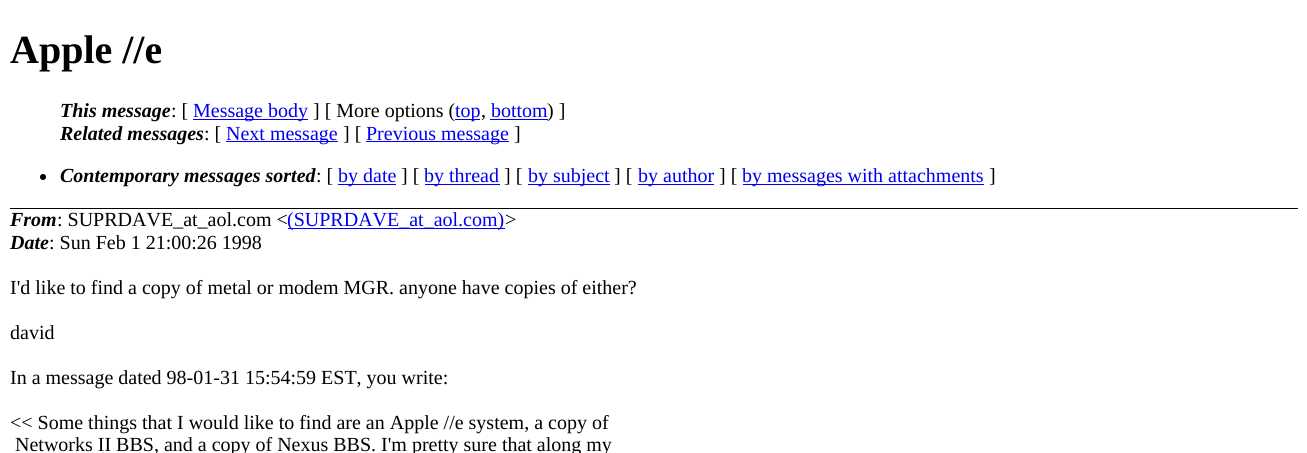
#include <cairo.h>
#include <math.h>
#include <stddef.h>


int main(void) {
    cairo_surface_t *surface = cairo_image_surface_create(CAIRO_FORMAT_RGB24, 1307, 453);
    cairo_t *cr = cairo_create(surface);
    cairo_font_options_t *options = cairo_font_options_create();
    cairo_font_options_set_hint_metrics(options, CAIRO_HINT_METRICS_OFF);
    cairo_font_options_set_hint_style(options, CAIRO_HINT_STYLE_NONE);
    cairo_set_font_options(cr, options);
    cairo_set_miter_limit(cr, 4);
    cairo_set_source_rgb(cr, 1, 1, 1);
    cairo_paint(cr);
    cairo_set_source_rgb(cr, 0, 0, 0);
    cairo_rectangle(cr, 10, 208, 1288, 1);
    cairo_fill(cr);
    cairo_select_font_face(cr, "Liberation Serif", CAIRO_FONT_SLANT_NORMAL, CAIRO_FONT_WEIGHT_BOLD);
    cairo_set_font_size(cr, 40);
    cairo_move_to(cr, 10, 63);
    cairo_show_text(cr, "Apple //e");
    cairo_select_font_face(cr, "Liberation Serif", CAIRO_FONT_SLANT_ITALIC, CAIRO_FONT_WEIGHT_BOLD);
    cairo_set_font_size(cr, 20);
    cairo_move_to(cr, 60, 117);
    cairo_show_text(cr, "This message");
    cairo_select_font_face(cr, "Liberation Serif", CAIRO_FONT_SLANT_NORMAL, CAIRO_FONT_WEIGHT_NORMAL);
    cairo_move_to(cr, 171, 117);
    cairo_show_text(cr, ": [");
    cairo_set_source_rgb(cr, 0, 0, 0.933);
    cairo_rectangle(cr, 193, 119, 115, 1);
    cairo_fill(cr);
    cairo_move_to(cr, 193, 117);
    cairo_show_text(cr, "Message body");
    cairo_set_source_rgb(cr, 0, 0, 0);
    cairo_move_to(cr, 313, 117);
    cairo_show_text(cr, "] [ More options (");
    cairo_set_source_rgb(cr, 0, 0, 0.933);
    cairo_rectangle(cr, 455, 119, 25, 1);
    cairo_fill(cr);
    cairo_move_to(cr, 455, 117);
    cairo_show_text(cr, "top");
    cairo_set_source_rgb(cr, 0, 0, 0);
    cairo_move_to(cr, 481, 117);
    cairo_show_text(cr, ",");
    cairo_set_source_rgb(cr, 0, 0, 0.933);
    cairo_move_to(cr, 491, 117);
    cairo_show_text(cr, "bottom");
    cairo_rectangle(cr, 490, 119, 58, 1);
    cairo_fill(cr);
    cairo_set_source_rgb(cr, 0, 0, 0);
    cairo_move_to(cr, 547, 117);
    cairo_show_text(cr, ") ]");
    cairo_select_font_face(cr, "Liberation Serif", CAIRO_FONT_SLANT_ITALIC, CAIRO_FONT_WEIGHT_BOLD);
    cairo_move_to(cr, 60, 140);
    cairo_show_text(cr, "Related messages");
    cairo_select_font_face(cr, "Liberation Serif", CAIRO_FONT_SLANT_NORMAL, CAIRO_FONT_WEIGHT_NORMAL);
    cairo_move_to(cr, 204, 140);
    cairo_show_text(cr, ": [");
    cairo_set_source_rgb(cr, 0, 0, 0.933);
    cairo_rectangle(cr, 226, 141, 112, 1);
    cairo_fill(cr);
    cairo_move_to(cr, 226, 140);
    cairo_show_text(cr, "Next message");
    cairo_set_source_rgb(cr, 0, 0, 0);
    cairo_move_to(cr, 343, 140);
    cairo_show_text(cr, "] [");
    cairo_set_source_rgb(cr, 0, 0, 0.933);
    cairo_rectangle(cr, 366, 141, 143, 1);
    cairo_fill(cr);
    cairo_move_to(cr, 366, 140);
    cairo_show_text(cr, "Previous message");
    cairo_set_source_rgb(cr, 0, 0, 0);
    cairo_move_to(cr, 514, 140);
    cairo_show_text(cr, "]");
    cairo_new_path(cr);
    cairo_arc(cr, 43, 177, 3, 0, 2 * M_PI);
    cairo_fill(cr);
    cairo_select_font_face(cr, "Liberation Serif", CAIRO_FONT_SLANT_ITALIC, CAIRO_FONT_WEIGHT_BOLD);
    cairo_move_to(cr, 60, 182);
    cairo_show_text(cr, "Contemporary messages sorted");
    cairo_select_font_face(cr, "Liberation Serif", CAIRO_FONT_SLANT_NORMAL, CAIRO_FONT_WEIGHT_NORMAL);
    cairo_move_to(cr, 316, 182);
    cairo_show_text(cr, ": [");
    cairo_set_source_rgb(cr, 0, 0, 0.933);
    cairo_rectangle(cr, 338, 184, 58, 1);
    cairo_fill(cr);
    cairo_move_to(cr, 338, 182);
    cairo_show_text(cr, "by date");
    cairo_set_source_rgb(cr, 0, 0, 0);
    cairo_move_to(cr, 401, 182);
    cairo_show_text(cr, "] [");
    cairo_set_source_rgb(cr, 0, 0, 0.933);
    cairo_rectangle(cr, 425, 184, 75, 1);
    cairo_fill(cr);
    cairo_move_to(cr, 424, 182);
    cairo_show_text(cr, "by thread");
    cairo_set_source_rgb(cr, 0, 0, 0);
    cairo_move_to(cr, 504, 182);
    cairo_show_text(cr, "] [");
    cairo_set_source_rgb(cr, 0, 0, 0.933);
    cairo_rectangle(cr, 528, 184, 82, 1);
    cairo_fill(cr);
    cairo_move_to(cr, 528, 182);
    cairo_show_text(cr, "by subject");
    cairo_set_source_rgb(cr, 0, 0, 0);
    cairo_move_to(cr, 614, 182);
    cairo_show_text(cr, "] [");
    cairo_set_source_rgb(cr, 0, 0, 0.933);
    cairo_rectangle(cr, 638, 184, 76, 1);
    cairo_fill(cr);
    cairo_move_to(cr, 638, 182);
    cairo_show_text(cr, "by author");
    cairo_set_source_rgb(cr, 0, 0, 0);
    cairo_move_to(cr, 719, 182);
    cairo_show_text(cr, "] [");
    cairo_set_source_rgb(cr, 0, 0, 0.933);
    cairo_rectangle(cr, 743, 184, 241, 1);
    cairo_fill(cr);
    cairo_move_to(cr, 742, 182);
    cairo_show_text(cr, "by messages with attachments");
    cairo_set_source_rgb(cr, 0, 0, 0);
    cairo_move_to(cr, 989, 182);
    cairo_show_text(cr, "]");
    cairo_select_font_face(cr, "Liberation Serif", CAIRO_FONT_SLANT_ITALIC, CAIRO_FONT_WEIGHT_BOLD);
    cairo_move_to(cr, 10, 226);
    cairo_show_text(cr, "From");
    cairo_select_font_face(cr, "Liberation Serif", CAIRO_FONT_SLANT_NORMAL, CAIRO_FONT_WEIGHT_NORMAL);
    cairo_move_to(cr, 57, 226);
    cairo_show_text(cr, ": SUPRDAVE_at_aol.com <");
    cairo_set_source_rgb(cr, 0, 0, 0.933);
    cairo_rectangle(cr, 288, 228, 217, 1);
    cairo_fill(cr);
    cairo_move_to(cr, 287, 226);
    cairo_show_text(cr, "(SUPRDAVE_at_aol.com)");
    cairo_set_source_rgb(cr, 0, 0, 0);
    cairo_move_to(cr, 505, 226);
    cairo_show_text(cr, ">");
    cairo_select_font_face(cr, "Liberation Serif", CAIRO_FONT_SLANT_ITALIC, CAIRO_FONT_WEIGHT_BOLD);
    cairo_move_to(cr, 10, 249);
    cairo_show_text(cr, "Date");
    cairo_select_font_face(cr, "Liberation Serif", CAIRO_FONT_SLANT_NORMAL, CAIRO_FONT_WEIGHT_NORMAL);
    cairo_move_to(cr, 49, 249);
    cairo_show_text(cr, ": Sun Feb 1 21:00:26 1998");
    cairo_move_to(cr, 10, 294);
    cairo_show_text(cr, "I'd like to find a copy of metal or modem MGR. anyone have copies of either?");
    cairo_move_to(cr, 10, 339);
    cairo_show_text(cr, "david");
    cairo_move_to(cr, 10, 384);
    cairo_show_text(cr, "In a message dated 98-01-31 15:54:59 EST, you write:");
    cairo_move_to(cr, 10, 429);
    cairo_show_text(cr, "<< Some things that I would like to find are an Apple //e system, a copy of");
    cairo_move_to(cr, 15, 451);
    cairo_show_text(cr, "Networks II BBS, and a copy of Nexus BBS. I'm pretty sure that along my");
    cairo_surface_write_to_png(surface, "page.png");
    cairo_font_options_destroy(options);
    cairo_destroy(cr);
    cairo_surface_destroy(surface);
    return 0;
}
